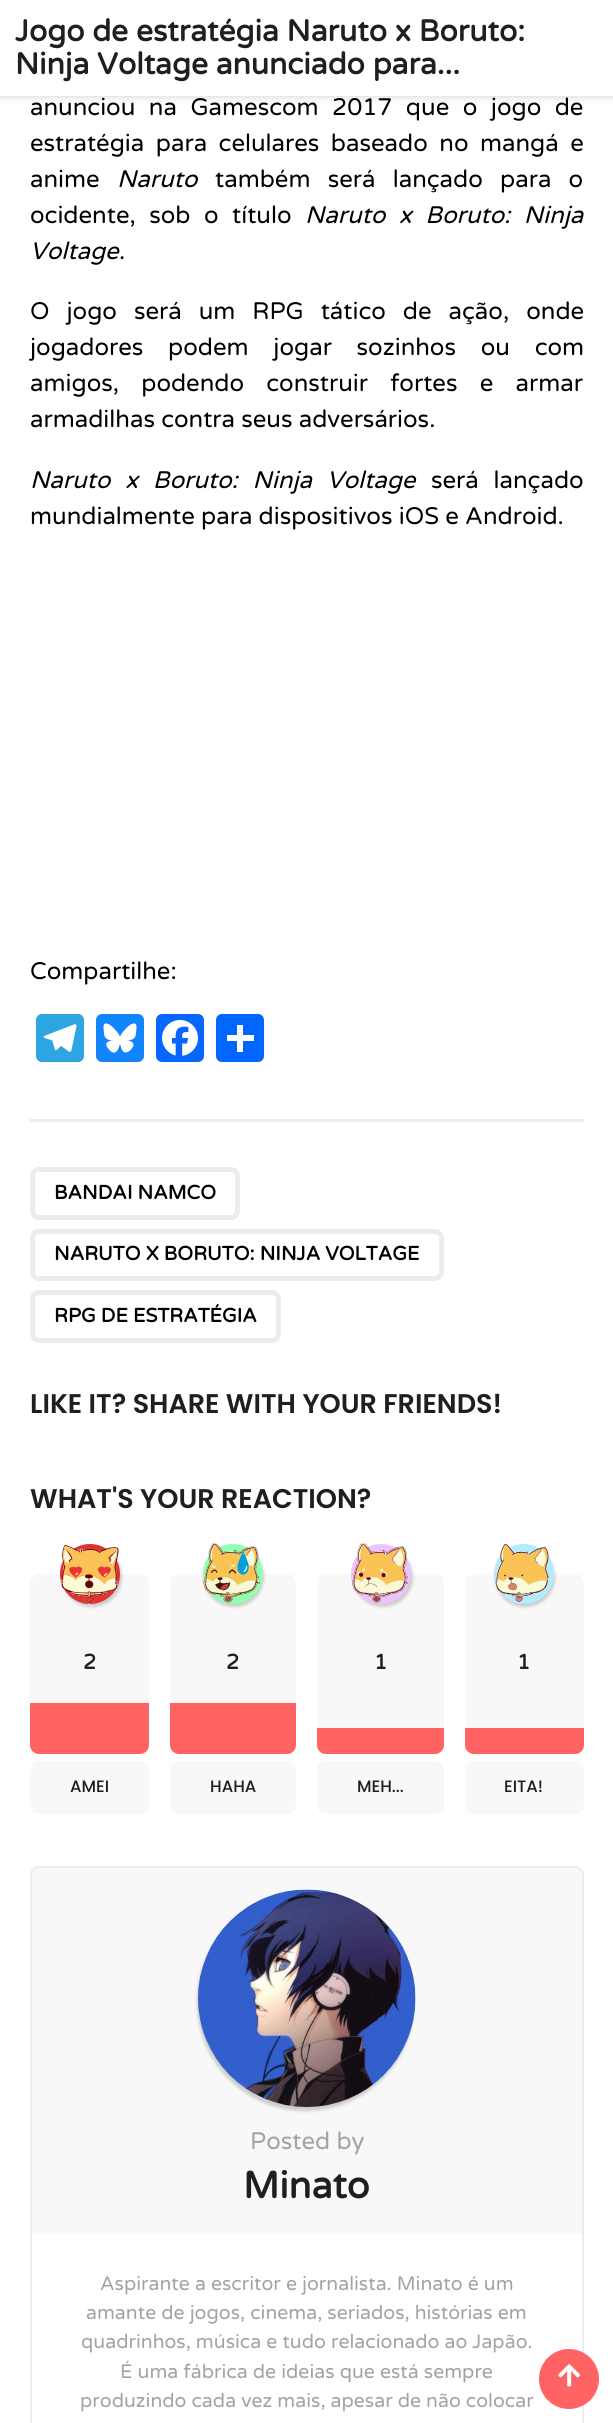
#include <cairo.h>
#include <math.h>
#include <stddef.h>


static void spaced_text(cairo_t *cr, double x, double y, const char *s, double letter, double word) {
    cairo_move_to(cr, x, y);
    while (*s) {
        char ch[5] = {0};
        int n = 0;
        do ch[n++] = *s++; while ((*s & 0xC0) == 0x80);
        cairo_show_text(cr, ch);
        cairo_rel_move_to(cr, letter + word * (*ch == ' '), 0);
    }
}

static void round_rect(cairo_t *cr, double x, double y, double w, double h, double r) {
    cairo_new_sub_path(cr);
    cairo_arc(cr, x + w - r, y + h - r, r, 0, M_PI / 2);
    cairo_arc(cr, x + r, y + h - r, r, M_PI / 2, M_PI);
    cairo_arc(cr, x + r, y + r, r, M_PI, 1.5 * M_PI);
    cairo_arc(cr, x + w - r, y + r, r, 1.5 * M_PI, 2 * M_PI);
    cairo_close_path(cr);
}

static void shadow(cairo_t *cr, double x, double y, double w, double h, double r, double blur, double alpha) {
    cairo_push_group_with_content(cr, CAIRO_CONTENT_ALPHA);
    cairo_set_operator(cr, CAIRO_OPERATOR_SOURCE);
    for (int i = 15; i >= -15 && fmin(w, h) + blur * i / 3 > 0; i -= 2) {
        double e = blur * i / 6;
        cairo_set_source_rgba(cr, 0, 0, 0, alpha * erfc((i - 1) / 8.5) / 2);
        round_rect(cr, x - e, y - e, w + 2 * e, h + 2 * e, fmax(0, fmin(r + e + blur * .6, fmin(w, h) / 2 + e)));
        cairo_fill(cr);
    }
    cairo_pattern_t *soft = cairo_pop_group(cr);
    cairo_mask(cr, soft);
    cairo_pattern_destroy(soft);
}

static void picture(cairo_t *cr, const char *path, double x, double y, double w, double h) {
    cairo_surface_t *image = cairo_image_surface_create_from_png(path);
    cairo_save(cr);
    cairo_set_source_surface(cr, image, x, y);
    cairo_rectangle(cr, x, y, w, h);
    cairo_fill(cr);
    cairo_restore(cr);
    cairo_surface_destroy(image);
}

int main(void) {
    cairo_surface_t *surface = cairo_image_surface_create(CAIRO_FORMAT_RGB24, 613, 2423);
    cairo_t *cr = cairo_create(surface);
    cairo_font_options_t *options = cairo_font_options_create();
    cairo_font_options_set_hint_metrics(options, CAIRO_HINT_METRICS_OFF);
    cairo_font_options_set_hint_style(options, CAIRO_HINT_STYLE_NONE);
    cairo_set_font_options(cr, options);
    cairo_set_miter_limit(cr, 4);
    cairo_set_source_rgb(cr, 1, 1, 1);
    cairo_paint(cr);
    cairo_set_source_rgb(cr, 0, 0, 0);
    shadow(cr, 0, 0, 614, 96, 0, 4.5, 0.2);
    cairo_set_source_rgb(cr, 1, 1, 1);
    cairo_rectangle(cr, 0, 0, 613, 96);
    cairo_fill(cr);
    cairo_select_font_face(cr, "Varela Round", CAIRO_FONT_SLANT_NORMAL, CAIRO_FONT_WEIGHT_BOLD);
    cairo_set_font_size(cr, 30);
    cairo_set_source_rgb(cr, 0.122, 0.122, 0.122);
    cairo_move_to(cr, 15, 41);
    cairo_show_text(cr, "Jogo de estratégia Naruto x Boruto:");
    cairo_move_to(cr, 15, 74);
    cairo_show_text(cr, "Ninja Voltage anunciado para...");
    cairo_select_font_face(cr, "Varela Round", CAIRO_FONT_SLANT_NORMAL, CAIRO_FONT_WEIGHT_NORMAL);
    cairo_set_font_size(cr, 24);
    cairo_set_source_rgb(cr, 0, 0, 0);
    spaced_text(cr, 30, 115, "anunciou na Gamescom 2017 que o jogo de", 0, 7.25);
    spaced_text(cr, 30, 151, "estratégia para celulares baseado no mangá e", 0, 5.25);
    cairo_move_to(cr, 30, 187);
    cairo_show_text(cr, "anime");
    cairo_select_font_face(cr, "Varela Round", CAIRO_FONT_SLANT_ITALIC, CAIRO_FONT_WEIGHT_NORMAL);
    cairo_move_to(cr, 117, 187);
    cairo_show_text(cr, "Naruto");
    cairo_select_font_face(cr, "Varela Round", CAIRO_FONT_SLANT_NORMAL, CAIRO_FONT_WEIGHT_NORMAL);
    spaced_text(cr, 215, 187, "também será lançado para o", 0, 11);
    spaced_text(cr, 30, 223, "ocidente, sob o título", 0, 7.25);
    cairo_select_font_face(cr, "Varela Round", CAIRO_FONT_SLANT_ITALIC, CAIRO_FONT_WEIGHT_NORMAL);
    spaced_text(cr, 305, 223, "Naruto x Boruto: Ninja", 0, 7.25);
    cairo_move_to(cr, 30, 259);
    cairo_show_text(cr, "Voltage");
    cairo_select_font_face(cr, "Varela Round", CAIRO_FONT_SLANT_NORMAL, CAIRO_FONT_WEIGHT_NORMAL);
    cairo_move_to(cr, 119, 259);
    cairo_show_text(cr, ".");
    spaced_text(cr, 30, 319, "O jogo será um RPG tático de ação, onde", 0, 10.75);
    spaced_text(cr, 30, 355, "jogadores podem jogar sozinhos ou com", 0, 18.5);
    spaced_text(cr, 30, 391, "amigos, podendo construir fortes e armar", 0, 16);
    cairo_move_to(cr, 30, 427);
    cairo_show_text(cr, "armadilhas contra seus adversários.");
    cairo_select_font_face(cr, "Varela Round", CAIRO_FONT_SLANT_ITALIC, CAIRO_FONT_WEIGHT_NORMAL);
    spaced_text(cr, 30, 488, "Naruto x Boruto: Ninja Voltage", 0, 8.5);
    cairo_select_font_face(cr, "Varela Round", CAIRO_FONT_SLANT_NORMAL, CAIRO_FONT_WEIGHT_NORMAL);
    spaced_text(cr, 431, 488, "será lançado", 0, 8.5);
    cairo_move_to(cr, 30, 524);
    cairo_show_text(cr, "mundialmente para dispositivos iOS e Android.");
    cairo_move_to(cr, 30, 979);
    cairo_show_text(cr, "Compartilhe:");
    cairo_set_source_rgb(cr, 0.173, 0.647, 0.878);
    round_rect(cr, 36, 1014, 48, 48, 6);
    cairo_fill(cr);
    picture(cr, "img1.png", 43, 1024, 34, 28);
    cairo_set_source_rgb(cr, 0.071, 0.522, 0.996);
    round_rect(cr, 96, 1014, 48, 48, 6);
    cairo_fill(cr);
    picture(cr, "img2.png", 103, 1023, 34, 30);
    cairo_set_source_rgb(cr, 0.031, 0.4, 1);
    round_rect(cr, 156, 1014, 48, 48, 6);
    cairo_fill(cr);
    picture(cr, "img3.png", 162, 1020, 36, 36);
    cairo_set_source_rgb(cr, 0.004, 0.4, 1);
    round_rect(cr, 216, 1014, 48, 48, 6);
    cairo_fill(cr);
    cairo_set_source_rgb(cr, 1, 1, 1);
    cairo_rectangle(cr, 237, 1025, 6, 27);
    cairo_fill(cr);
    cairo_rectangle(cr, 227, 1035, 27, 6);
    cairo_fill(cr);
    cairo_set_source_rgb(cr, 0.925, 0.925, 0.925);
    cairo_rectangle(cr, 30, 1119, 554, 3);
    cairo_fill(cr);
    round_rect(cr, 32.5, 1169.5, 205, 48, 6.5);
    cairo_set_line_width(cr, 5);
    cairo_stroke(cr);
    cairo_select_font_face(cr, "Varela Round", CAIRO_FONT_SLANT_NORMAL, CAIRO_FONT_WEIGHT_BOLD);
    cairo_set_font_size(cr, 19.5);
    cairo_set_source_rgb(cr, 0, 0, 0);
    cairo_move_to(cr, 54, 1199);
    cairo_show_text(cr, "BANDAI NAMCO");
    round_rect(cr, 32.5, 1231.5, 409, 47, 6.5);
    cairo_set_source_rgb(cr, 0.925, 0.925, 0.925);
    cairo_stroke(cr);
    cairo_set_source_rgb(cr, 0, 0, 0);
    cairo_move_to(cr, 54, 1260);
    cairo_show_text(cr, "NARUTO X BORUTO: NINJA VOLTAGE");
    round_rect(cr, 32.5, 1292.5, 246, 48, 6.5);
    cairo_set_source_rgb(cr, 0.925, 0.925, 0.925);
    cairo_stroke(cr);
    cairo_set_source_rgb(cr, 0, 0, 0);
    cairo_move_to(cr, 54, 1322);
    cairo_show_text(cr, "RPG DE ESTRATÉGIA");
    cairo_select_font_face(cr, "Poppins SemiBold", CAIRO_FONT_SLANT_NORMAL, CAIRO_FONT_WEIGHT_NORMAL);
    cairo_set_font_size(cr, 27);
    cairo_set_source_rgb(cr, 0.122, 0.122, 0.122);
    cairo_move_to(cr, 30, 1413);
    cairo_show_text(cr, "LIKE IT? SHARE WITH YOUR FRIENDS!");
    cairo_move_to(cr, 30, 1508);
    cairo_show_text(cr, "WHAT'S YOUR REACTION?");
    cairo_set_source_rgb(cr, 0.969, 0.969, 0.969);
    round_rect(cr, 30, 1574, 119, 180, 9);
    cairo_fill(cr);
    cairo_set_source_rgb(cr, 0, 0, 0);
    shadow(cr, 62, 1547, 60, 60, 30, 1.5, 0.18);
    cairo_set_source_rgb(cr, 0.867, 0.2, 0.2);
    cairo_arc(cr, 90, 1574, 30, 0, 2 * M_PI);
    cairo_fill(cr);
    picture(cr, "img4.png", 60, 1544, 59, 60);
    cairo_select_font_face(cr, "Varela Round", CAIRO_FONT_SLANT_NORMAL, CAIRO_FONT_WEIGHT_BOLD);
    cairo_set_font_size(cr, 21);
    cairo_set_source_rgb(cr, 0.122, 0.122, 0.122);
    cairo_move_to(cr, 83, 1669);
    cairo_show_text(cr, "2");
    cairo_set_source_rgb(cr, 1, 0.388, 0.388);
    cairo_new_path(cr);
    cairo_move_to(cr, 30, 1703);
    cairo_line_to(cr, 149, 1703);
    cairo_line_to(cr, 149, 1745);
    cairo_curve_to(cr, 149, 1750, 145, 1754, 140, 1754);
    cairo_line_to(cr, 39, 1754);
    cairo_curve_to(cr, 34, 1754, 30, 1750, 30, 1745);
    cairo_close_path(cr);
    cairo_fill(cr);
    cairo_set_source_rgb(cr, 0.969, 0.969, 0.969);
    round_rect(cr, 30, 1761, 119, 53, 9);
    cairo_fill(cr);
    cairo_select_font_face(cr, "Poppins Medium", CAIRO_FONT_SLANT_NORMAL, CAIRO_FONT_WEIGHT_NORMAL);
    cairo_set_font_size(cr, 16.5);
    cairo_set_source_rgb(cr, 0.122, 0.122, 0.122);
    cairo_move_to(cr, 70, 1792);
    cairo_show_text(cr, "AMEI");
    cairo_set_source_rgb(cr, 0.969, 0.969, 0.969);
    round_rect(cr, 170, 1574, 126, 180, 9);
    cairo_fill(cr);
    cairo_set_source_rgb(cr, 0, 0, 0);
    shadow(cr, 204, 1547, 60, 60, 30, 1.5, 0.18);
    cairo_set_source_rgb(cr, 0.561, 1, 0.69);
    cairo_arc(cr, 233, 1574, 30, 0, 2 * M_PI);
    cairo_fill(cr);
    picture(cr, "img5.png", 203, 1543, 57, 60);
    cairo_select_font_face(cr, "Varela Round", CAIRO_FONT_SLANT_NORMAL, CAIRO_FONT_WEIGHT_BOLD);
    cairo_set_font_size(cr, 21);
    cairo_set_source_rgb(cr, 0.122, 0.122, 0.122);
    cairo_move_to(cr, 226, 1669);
    cairo_show_text(cr, "2");
    cairo_set_source_rgb(cr, 1, 0.388, 0.388);
    cairo_new_path(cr);
    cairo_move_to(cr, 170, 1703);
    cairo_line_to(cr, 296, 1703);
    cairo_line_to(cr, 296, 1745);
    cairo_curve_to(cr, 296, 1750, 292, 1754, 287, 1754);
    cairo_line_to(cr, 179, 1754);
    cairo_curve_to(cr, 174, 1754, 170, 1750, 170, 1745);
    cairo_close_path(cr);
    cairo_fill(cr);
    cairo_set_source_rgb(cr, 0.969, 0.969, 0.969);
    round_rect(cr, 170, 1761, 126, 53, 9);
    cairo_fill(cr);
    cairo_select_font_face(cr, "Poppins Medium", CAIRO_FONT_SLANT_NORMAL, CAIRO_FONT_WEIGHT_NORMAL);
    cairo_set_font_size(cr, 16.5);
    cairo_set_source_rgb(cr, 0.122, 0.122, 0.122);
    cairo_move_to(cr, 210, 1792);
    cairo_show_text(cr, "HAHA");
    cairo_set_source_rgb(cr, 0.969, 0.969, 0.969);
    round_rect(cr, 317, 1574, 127, 180, 9);
    cairo_fill(cr);
    cairo_set_source_rgb(cr, 0, 0, 0);
    shadow(cr, 353, 1547, 60, 60, 30, 1.5, 0.18);
    cairo_set_source_rgb(cr, 0.922, 0.765, 1);
    cairo_arc(cr, 381, 1574, 30, 0, 2 * M_PI);
    cairo_fill(cr);
    picture(cr, "img6.png", 352, 1543, 56, 60);
    cairo_select_font_face(cr, "Varela Round", CAIRO_FONT_SLANT_NORMAL, CAIRO_FONT_WEIGHT_BOLD);
    cairo_set_font_size(cr, 21);
    cairo_set_source_rgb(cr, 0.122, 0.122, 0.122);
    cairo_move_to(cr, 374, 1669);
    cairo_show_text(cr, "1");
    cairo_set_source_rgb(cr, 1, 0.388, 0.388);
    cairo_new_path(cr);
    cairo_move_to(cr, 317, 1728);
    cairo_line_to(cr, 444, 1728);
    cairo_line_to(cr, 444, 1745);
    cairo_curve_to(cr, 444, 1750, 440, 1754, 435, 1754);
    cairo_line_to(cr, 326, 1754);
    cairo_curve_to(cr, 321, 1754, 317, 1750, 317, 1745);
    cairo_close_path(cr);
    cairo_fill(cr);
    cairo_set_source_rgb(cr, 0.969, 0.969, 0.969);
    round_rect(cr, 317, 1761, 127, 53, 9);
    cairo_fill(cr);
    cairo_select_font_face(cr, "Poppins Medium", CAIRO_FONT_SLANT_NORMAL, CAIRO_FONT_WEIGHT_NORMAL);
    cairo_set_font_size(cr, 16.5);
    cairo_set_source_rgb(cr, 0.122, 0.122, 0.122);
    cairo_move_to(cr, 357, 1792);
    cairo_show_text(cr, "MEH...");
    cairo_set_source_rgb(cr, 0.969, 0.969, 0.969);
    round_rect(cr, 465, 1574, 119, 180, 9);
    cairo_fill(cr);
    cairo_set_source_rgb(cr, 0, 0, 0);
    shadow(cr, 495, 1547, 60, 60, 30, 1.5, 0.18);
    cairo_set_source_rgb(cr, 0.702, 0.925, 1);
    cairo_arc(cr, 524, 1574, 30, 0, 2 * M_PI);
    cairo_fill(cr);
    picture(cr, "img7.png", 494, 1543, 56, 60);
    cairo_select_font_face(cr, "Varela Round", CAIRO_FONT_SLANT_NORMAL, CAIRO_FONT_WEIGHT_BOLD);
    cairo_set_font_size(cr, 21);
    cairo_set_source_rgb(cr, 0.122, 0.122, 0.122);
    cairo_move_to(cr, 517, 1669);
    cairo_show_text(cr, "1");
    cairo_set_source_rgb(cr, 1, 0.388, 0.388);
    cairo_new_path(cr);
    cairo_move_to(cr, 465, 1728);
    cairo_line_to(cr, 584, 1728);
    cairo_line_to(cr, 584, 1745);
    cairo_curve_to(cr, 584, 1750, 580, 1754, 575, 1754);
    cairo_line_to(cr, 474, 1754);
    cairo_curve_to(cr, 469, 1754, 465, 1750, 465, 1745);
    cairo_close_path(cr);
    cairo_fill(cr);
    cairo_set_source_rgb(cr, 0.969, 0.969, 0.969);
    round_rect(cr, 465, 1761, 119, 53, 9);
    cairo_fill(cr);
    cairo_select_font_face(cr, "Poppins Medium", CAIRO_FONT_SLANT_NORMAL, CAIRO_FONT_WEIGHT_NORMAL);
    cairo_set_font_size(cr, 16.5);
    cairo_set_source_rgb(cr, 0.122, 0.122, 0.122);
    cairo_move_to(cr, 504, 1792);
    cairo_show_text(cr, "EITA!");
    round_rect(cr, 31, 1867, 552, 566, 8);
    cairo_set_source_rgb(cr, 0.925, 0.925, 0.925);
    cairo_set_line_width(cr, 2);
    cairo_stroke(cr);
    cairo_set_source_rgb(cr, 0.969, 0.969, 0.969);
    cairo_new_path(cr);
    cairo_move_to(cr, 40, 1868);
    cairo_line_to(cr, 574, 1868);
    cairo_curve_to(cr, 578.5, 1868, 582, 1871.5, 582, 1876);
    cairo_line_to(cr, 582, 2234);
    cairo_line_to(cr, 32, 2234);
    cairo_line_to(cr, 32, 1876);
    cairo_curve_to(cr, 32, 1871.5, 35.5, 1868, 40, 1868);
    cairo_close_path(cr);
    cairo_fill(cr);
    cairo_set_source_rgb(cr, 0, 0, 0);
    shadow(cr, 197, 1893, 217, 218, 108.5, 1.5, 0.18);
    picture(cr, "img8.png", 198, 1889, 218, 218);
    cairo_select_font_face(cr, "Varela Round", CAIRO_FONT_SLANT_NORMAL, CAIRO_FONT_WEIGHT_NORMAL);
    cairo_set_font_size(cr, 24);
    cairo_set_source_rgb(cr, 0.639, 0.639, 0.639);
    cairo_move_to(cr, 250, 2149);
    cairo_show_text(cr, "Posted by");
    cairo_select_font_face(cr, "Varela Round", CAIRO_FONT_SLANT_NORMAL, CAIRO_FONT_WEIGHT_BOLD);
    cairo_set_font_size(cr, 37.5);
    cairo_set_source_rgb(cr, 0.122, 0.122, 0.122);
    cairo_move_to(cr, 243, 2198);
    cairo_show_text(cr, "Minato");
    cairo_select_font_face(cr, "Varela Round", CAIRO_FONT_SLANT_NORMAL, CAIRO_FONT_WEIGHT_NORMAL);
    cairo_set_font_size(cr, 19.5);
    cairo_set_source_rgb(cr, 0.639, 0.639, 0.639);
    cairo_move_to(cr, 100, 2290);
    cairo_show_text(cr, "Aspirante a escritor e jornalista. Minato é um");
    cairo_move_to(cr, 86, 2319);
    cairo_show_text(cr, "amante de jogos, cinema, seriados, histórias em");
    cairo_move_to(cr, 81, 2348);
    cairo_show_text(cr, "quadrinhos, música e tudo relacionado ao Japão.");
    cairo_move_to(cr, 120, 2378);
    cairo_show_text(cr, "É uma fábrica de ideias que está sempre");
    cairo_move_to(cr, 80, 2407);
    cairo_show_text(cr, "produzindo cada vez mais, apesar de não colocar");
    cairo_set_source_rgb(cr, 1, 0.388, 0.388);
    cairo_new_path(cr);
    cairo_arc(cr, 569, 2379, 30, 0, 2 * M_PI);
    cairo_fill(cr);
    picture(cr, "img9.png", 558, 2364, 22, 23);
    cairo_surface_write_to_png(surface, "page.png");
    cairo_font_options_destroy(options);
    cairo_destroy(cr);
    cairo_surface_destroy(surface);
    return 0;
}
